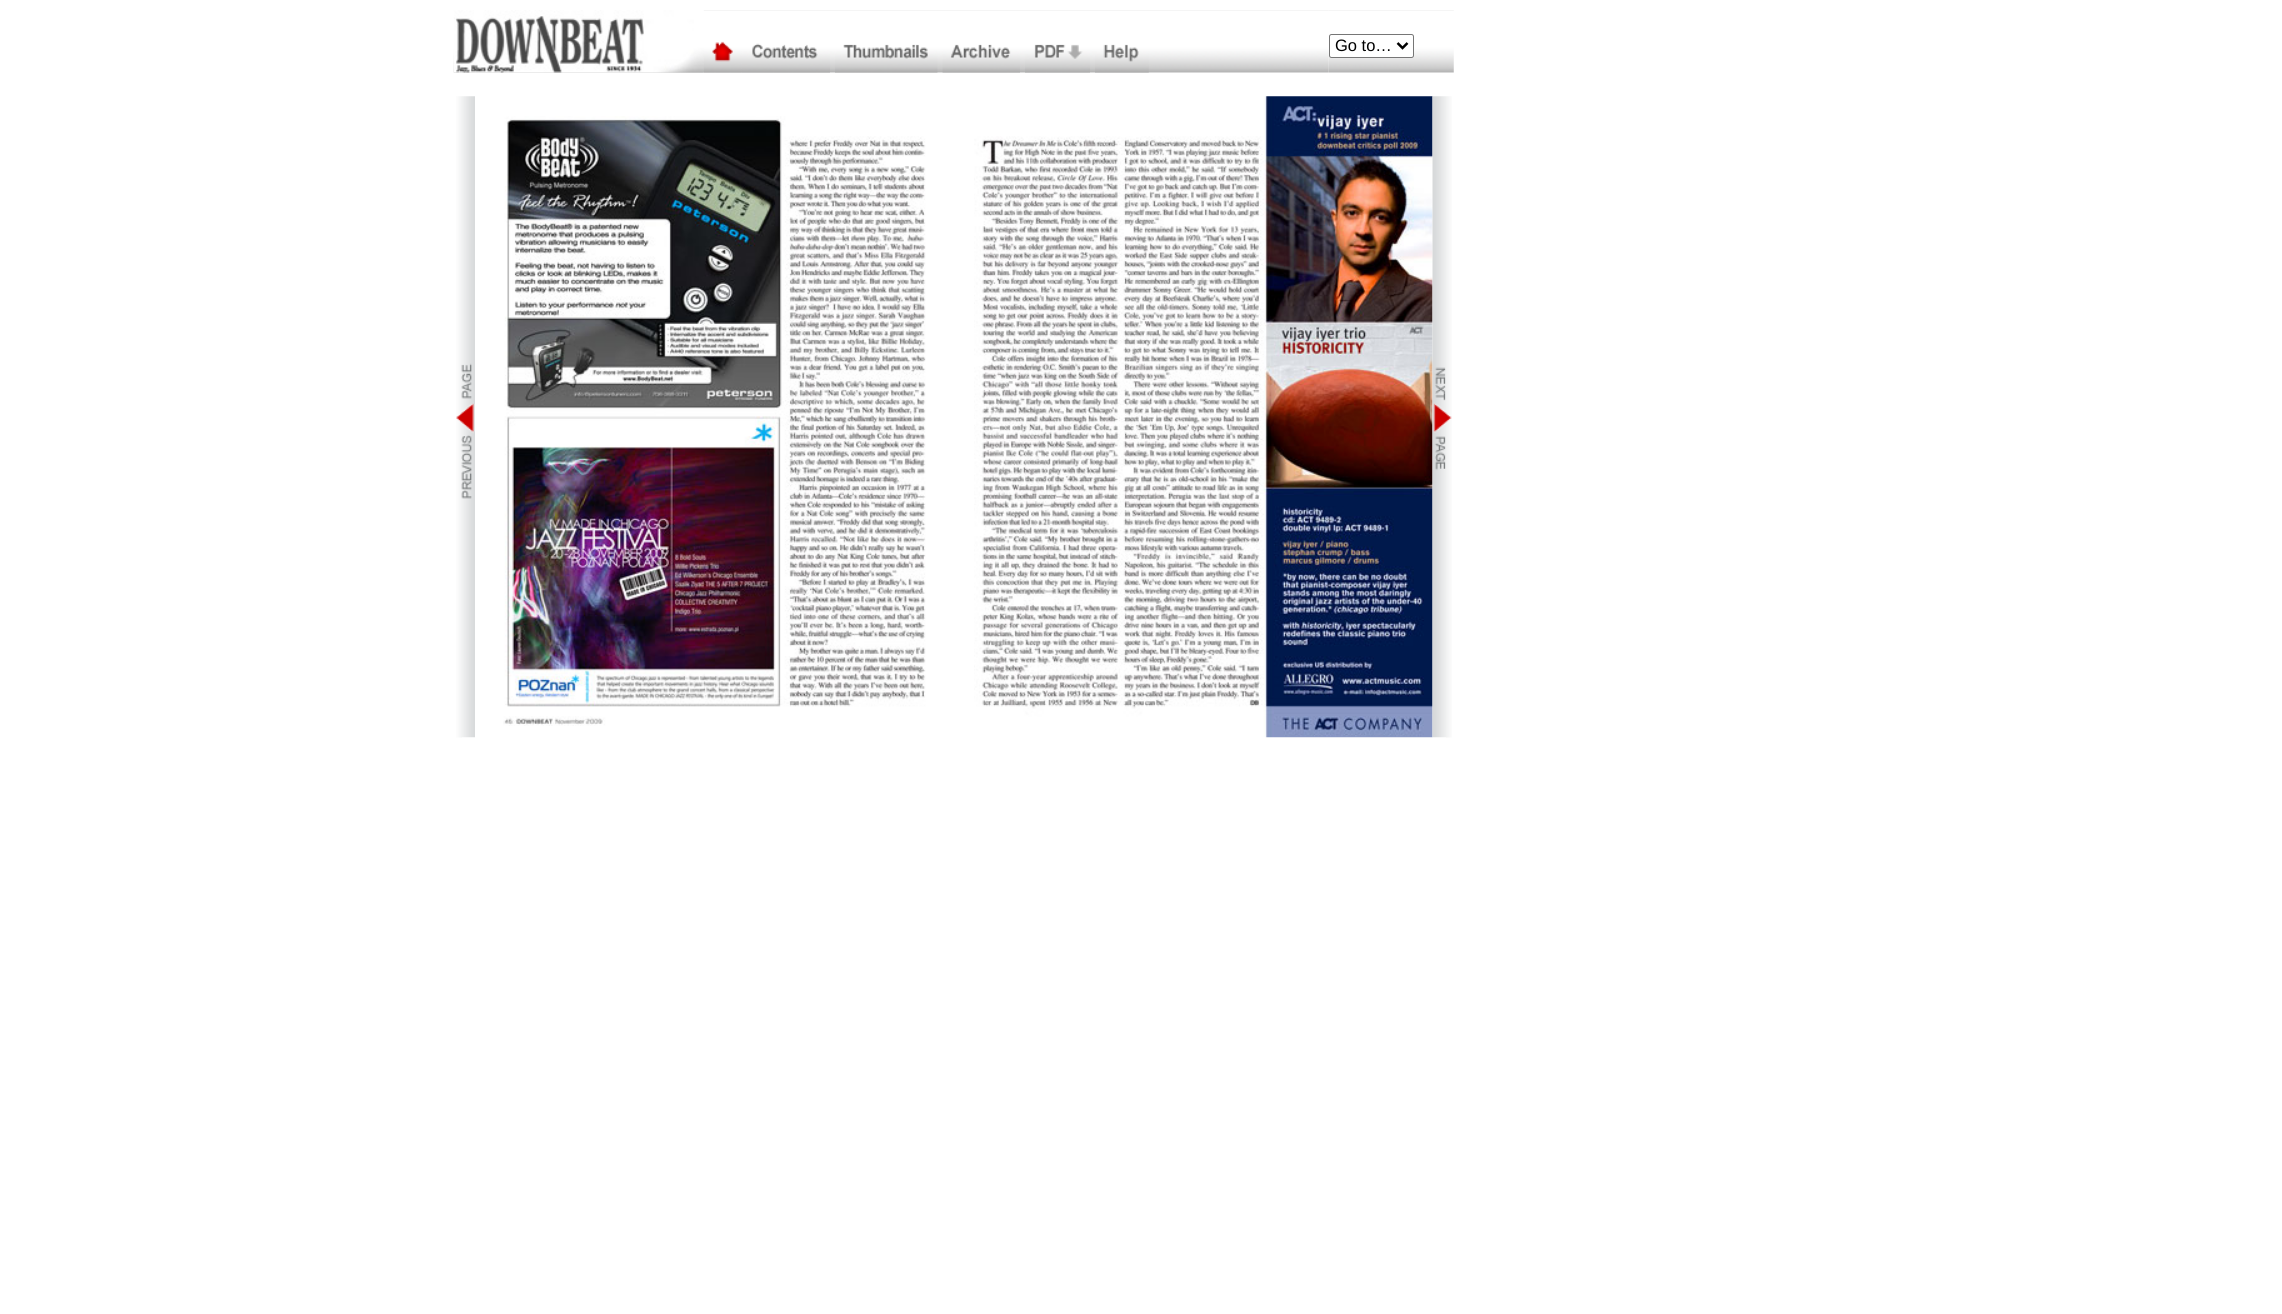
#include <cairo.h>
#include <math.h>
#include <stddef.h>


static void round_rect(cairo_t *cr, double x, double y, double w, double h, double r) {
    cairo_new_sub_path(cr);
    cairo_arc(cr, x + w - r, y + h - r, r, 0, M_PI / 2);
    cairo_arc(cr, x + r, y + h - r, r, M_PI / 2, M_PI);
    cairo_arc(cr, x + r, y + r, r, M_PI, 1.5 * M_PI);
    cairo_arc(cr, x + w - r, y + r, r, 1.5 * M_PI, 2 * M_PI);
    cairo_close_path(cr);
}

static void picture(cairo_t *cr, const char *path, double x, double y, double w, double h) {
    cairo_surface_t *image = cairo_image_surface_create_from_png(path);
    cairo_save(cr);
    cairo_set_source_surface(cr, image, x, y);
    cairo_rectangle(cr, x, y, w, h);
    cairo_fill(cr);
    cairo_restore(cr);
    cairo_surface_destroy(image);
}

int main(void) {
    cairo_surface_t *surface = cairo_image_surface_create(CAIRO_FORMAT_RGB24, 2282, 1314);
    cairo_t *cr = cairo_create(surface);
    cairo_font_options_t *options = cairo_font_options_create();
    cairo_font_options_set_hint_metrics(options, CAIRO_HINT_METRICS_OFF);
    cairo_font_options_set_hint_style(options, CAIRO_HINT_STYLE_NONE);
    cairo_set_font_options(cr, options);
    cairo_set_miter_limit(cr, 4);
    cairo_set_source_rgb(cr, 1, 1, 1);
    cairo_paint(cr);
    picture(cr, "img1.png", 453, 10, 876, 63);
    picture(cr, "img2.png", 453, 10, 251, 63);
    picture(cr, "img3.png", 704, 41, 38, 32);
    picture(cr, "img4.png", 741, 43, 89, 30);
    picture(cr, "img5.png", 835, 44, 103, 29);
    picture(cr, "img6.png", 942, 44, 78, 29);
    picture(cr, "img7.png", 1025, 44, 65, 29);
    picture(cr, "img8.png", 1095, 44, 54, 29);
    picture(cr, "img9.png", 1328, 10, 126, 63);
    cairo_set_source_rgb(cr, 1, 1, 1);
    round_rect(cr, 1329.5, 34.5, 84, 23, 2);
    cairo_fill_preserve(cr);
    cairo_set_source_rgb(cr, 0.463, 0.463, 0.463);
    cairo_set_line_width(cr, 1);
    cairo_stroke(cr);
    cairo_new_path(cr);
    cairo_move_to(cr, 1397.5, 43);
    cairo_line_to(cr, 1402.5, 48);
    cairo_line_to(cr, 1407.5, 43);
    cairo_set_source_rgb(cr, 0, 0, 0);
    cairo_set_line_width(cr, 2.5);
    cairo_stroke(cr);
    cairo_select_font_face(cr, "Liberation Sans", CAIRO_FONT_SLANT_NORMAL, CAIRO_FONT_WEIGHT_NORMAL);
    cairo_set_font_size(cr, 16.5);
    cairo_move_to(cr, 1335, 51);
    cairo_show_text(cr, "Go to…");
    picture(cr, "img10.png", 456, 96, 19, 642);
    picture(cr, "img11.png", 503, 116, 423, 610);
    picture(cr, "img12.png", 974, 96, 459, 642);
    picture(cr, "img13.png", 1432, 96, 20, 642);
    cairo_set_source_rgba(cr, 1, 1, 1, 0.5);
    cairo_rectangle(cr, 462, 737, 984, 1);
    cairo_fill(cr);
    cairo_surface_write_to_png(surface, "page.png");
    cairo_font_options_destroy(options);
    cairo_destroy(cr);
    cairo_surface_destroy(surface);
    return 0;
}
